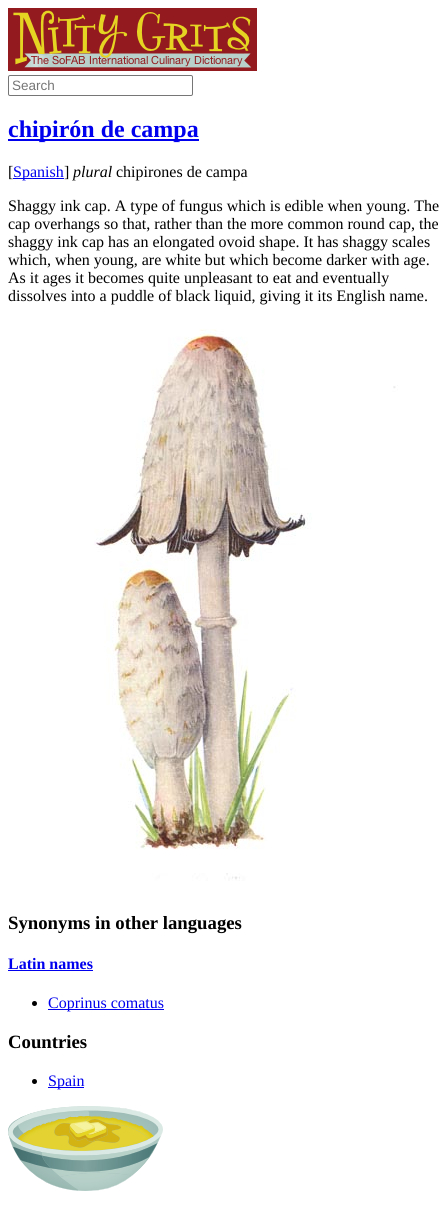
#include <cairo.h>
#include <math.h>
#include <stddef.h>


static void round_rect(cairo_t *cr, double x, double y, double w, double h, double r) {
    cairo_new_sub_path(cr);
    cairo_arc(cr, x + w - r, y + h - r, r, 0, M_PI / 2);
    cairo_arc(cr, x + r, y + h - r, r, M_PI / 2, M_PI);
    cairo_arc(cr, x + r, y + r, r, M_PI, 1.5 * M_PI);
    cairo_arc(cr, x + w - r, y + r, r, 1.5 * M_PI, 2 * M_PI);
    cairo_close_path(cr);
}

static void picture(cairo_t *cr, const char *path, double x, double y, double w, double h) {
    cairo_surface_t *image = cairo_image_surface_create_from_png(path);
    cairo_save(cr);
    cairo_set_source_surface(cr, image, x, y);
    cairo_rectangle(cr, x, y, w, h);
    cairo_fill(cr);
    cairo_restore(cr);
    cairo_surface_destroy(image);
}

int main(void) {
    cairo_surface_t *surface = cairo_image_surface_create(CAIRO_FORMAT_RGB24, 448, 1218);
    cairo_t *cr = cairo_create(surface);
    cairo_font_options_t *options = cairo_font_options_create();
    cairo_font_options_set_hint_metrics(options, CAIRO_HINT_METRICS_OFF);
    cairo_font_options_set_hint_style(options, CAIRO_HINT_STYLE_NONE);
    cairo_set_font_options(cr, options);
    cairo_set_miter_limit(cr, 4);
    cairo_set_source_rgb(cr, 1, 1, 1);
    cairo_paint(cr);
    picture(cr, "img1.png", 8, 8, 249, 63);
    round_rect(cr, 8.5, 75.5, 184, 20, 1.5);
    cairo_set_source_rgb(cr, 0.463, 0.463, 0.463);
    cairo_set_line_width(cr, 1);
    cairo_stroke(cr);
    cairo_select_font_face(cr, "Liberation Sans", CAIRO_FONT_SLANT_NORMAL, CAIRO_FONT_WEIGHT_NORMAL);
    cairo_set_font_size(cr, 13.5);
    cairo_set_source_rgb(cr, 0.459, 0.459, 0.459);
    cairo_move_to(cr, 12, 90);
    cairo_show_text(cr, "Search");
    cairo_set_source_rgb(cr, 0, 0, 0.933);
    cairo_rectangle(cr, 8, 139, 191, 2);
    cairo_fill(cr);
    cairo_select_font_face(cr, "Liberation Serif", CAIRO_FONT_SLANT_NORMAL, CAIRO_FONT_WEIGHT_BOLD);
    cairo_set_font_size(cr, 24);
    cairo_move_to(cr, 8, 137);
    cairo_show_text(cr, "chipirón de campa");
    cairo_select_font_face(cr, "Liberation Serif", CAIRO_FONT_SLANT_NORMAL, CAIRO_FONT_WEIGHT_NORMAL);
    cairo_set_font_size(cr, 16);
    cairo_set_source_rgb(cr, 0, 0, 0);
    cairo_move_to(cr, 8, 177);
    cairo_show_text(cr, "[");
    cairo_set_source_rgb(cr, 0, 0, 0.933);
    cairo_rectangle(cr, 13, 178, 51, 1);
    cairo_fill(cr);
    cairo_move_to(cr, 13, 177);
    cairo_show_text(cr, "Spanish");
    cairo_set_source_rgb(cr, 0, 0, 0);
    cairo_move_to(cr, 64, 177);
    cairo_show_text(cr, "]");
    cairo_select_font_face(cr, "Liberation Serif", CAIRO_FONT_SLANT_ITALIC, CAIRO_FONT_WEIGHT_NORMAL);
    cairo_move_to(cr, 73, 177);
    cairo_show_text(cr, "plural");
    cairo_select_font_face(cr, "Liberation Serif", CAIRO_FONT_SLANT_NORMAL, CAIRO_FONT_WEIGHT_NORMAL);
    cairo_move_to(cr, 116, 177);
    cairo_show_text(cr, "chipirones de campa");
    cairo_move_to(cr, 8, 211);
    cairo_show_text(cr, "Shaggy ink cap. A type of fungus which is edible when young. The");
    cairo_move_to(cr, 8, 229);
    cairo_show_text(cr, "cap overhangs so that, rather than the more common round cap, the");
    cairo_move_to(cr, 8, 247);
    cairo_show_text(cr, "shaggy ink cap has an elongated ovoid shape. It has shaggy scales");
    cairo_move_to(cr, 8, 265);
    cairo_show_text(cr, "which, when young, are white but which become darker with age.");
    cairo_move_to(cr, 8, 283);
    cairo_show_text(cr, "As it ages it becomes quite unpleasant to eat and eventually");
    cairo_move_to(cr, 8, 301);
    cairo_show_text(cr, "dissolves into a puddle of black liquid, giving it its English name.");
    picture(cr, "img2.png", 94, 329, 304, 552);
    cairo_select_font_face(cr, "Liberation Serif", CAIRO_FONT_SLANT_NORMAL, CAIRO_FONT_WEIGHT_BOLD);
    cairo_set_font_size(cr, 18.75);
    cairo_move_to(cr, 8, 929);
    cairo_show_text(cr, "Synonyms in other languages");
    cairo_set_font_size(cr, 16);
    cairo_set_source_rgb(cr, 0, 0, 0.933);
    cairo_move_to(cr, 8, 969);
    cairo_show_text(cr, "Latin names");
    cairo_rectangle(cr, 8, 970, 85, 1);
    cairo_fill(cr);
    cairo_set_source_rgb(cr, 0, 0, 0);
    cairo_arc(cr, 34.5, 1003.5, 2.5, 0, 2 * M_PI);
    cairo_fill(cr);
    cairo_set_source_rgb(cr, 0, 0, 0.933);
    cairo_rectangle(cr, 48, 1009, 116, 1);
    cairo_fill(cr);
    cairo_select_font_face(cr, "Liberation Serif", CAIRO_FONT_SLANT_NORMAL, CAIRO_FONT_WEIGHT_NORMAL);
    cairo_move_to(cr, 48, 1008);
    cairo_show_text(cr, "Coprinus comatus");
    cairo_select_font_face(cr, "Liberation Serif", CAIRO_FONT_SLANT_NORMAL, CAIRO_FONT_WEIGHT_BOLD);
    cairo_set_font_size(cr, 18.75);
    cairo_set_source_rgb(cr, 0, 0, 0);
    cairo_move_to(cr, 8, 1048);
    cairo_show_text(cr, "Countries");
    cairo_new_path(cr);
    cairo_arc(cr, 34.5, 1081.5, 2.5, 0, 2 * M_PI);
    cairo_fill(cr);
    cairo_set_source_rgb(cr, 0, 0, 0.933);
    cairo_rectangle(cr, 48, 1087, 36, 1);
    cairo_fill(cr);
    cairo_select_font_face(cr, "Liberation Serif", CAIRO_FONT_SLANT_NORMAL, CAIRO_FONT_WEIGHT_NORMAL);
    cairo_set_font_size(cr, 16);
    cairo_move_to(cr, 48, 1086);
    cairo_show_text(cr, "Spain");
    picture(cr, "img3.png", 8, 1106, 155, 85);
    cairo_surface_write_to_png(surface, "page.png");
    cairo_font_options_destroy(options);
    cairo_destroy(cr);
    cairo_surface_destroy(surface);
    return 0;
}
